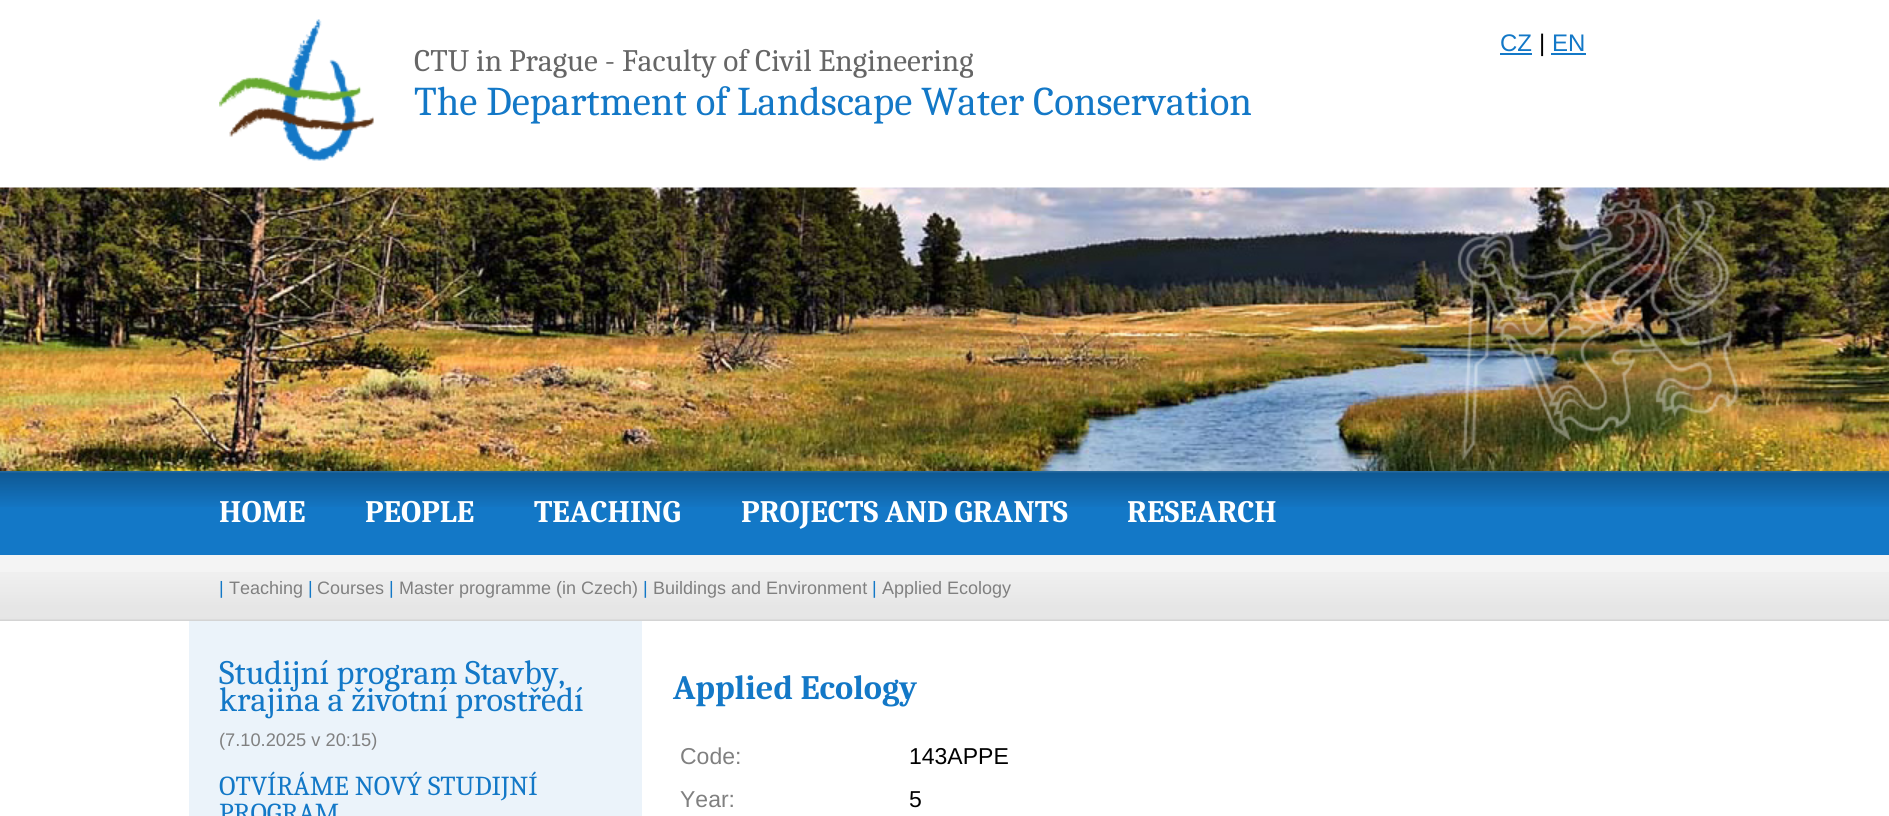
#include <cairo.h>
#include <math.h>
#include <stddef.h>


static void picture(cairo_t *cr, const char *path, double x, double y, double w, double h) {
    cairo_surface_t *image = cairo_image_surface_create_from_png(path);
    cairo_save(cr);
    cairo_set_source_surface(cr, image, x, y);
    cairo_rectangle(cr, x, y, w, h);
    cairo_fill(cr);
    cairo_restore(cr);
    cairo_surface_destroy(image);
}

int main(void) {
    cairo_surface_t *surface = cairo_image_surface_create(CAIRO_FORMAT_RGB24, 1889, 816);
    cairo_t *cr = cairo_create(surface);
    cairo_font_options_t *options = cairo_font_options_create();
    cairo_font_options_set_hint_metrics(options, CAIRO_HINT_METRICS_OFF);
    cairo_font_options_set_hint_style(options, CAIRO_HINT_STYLE_NONE);
    cairo_set_font_options(cr, options);
    cairo_set_miter_limit(cr, 4);
    cairo_set_source_rgb(cr, 1, 1, 1);
    cairo_paint(cr);
    cairo_select_font_face(cr, "Liberation Sans", CAIRO_FONT_SLANT_NORMAL, CAIRO_FONT_WEIGHT_NORMAL);
    cairo_set_font_size(cr, 24);
    cairo_set_source_rgb(cr, 0.078, 0.471, 0.78);
    cairo_move_to(cr, 1500, 51);
    cairo_show_text(cr, "CZ");
    cairo_rectangle(cr, 1500, 53, 32, 2);
    cairo_fill(cr);
    cairo_set_source_rgb(cr, 0, 0, 0);
    cairo_move_to(cr, 1539, 51);
    cairo_show_text(cr, "|");
    cairo_set_source_rgb(cr, 0.078, 0.471, 0.78);
    cairo_move_to(cr, 1552, 51);
    cairo_show_text(cr, "EN");
    cairo_rectangle(cr, 1551, 53, 35, 2);
    cairo_fill(cr);
    picture(cr, "img1.png", 219, 19, 155, 142);
    cairo_select_font_face(cr, "Caladea", CAIRO_FONT_SLANT_NORMAL, CAIRO_FONT_WEIGHT_NORMAL);
    cairo_set_font_size(cr, 31.25);
    cairo_set_source_rgb(cr, 0.4, 0.4, 0.4);
    cairo_move_to(cr, 414, 71);
    cairo_show_text(cr, "CTU in Prague - Faculty of Civil Engineering");
    cairo_set_font_size(cr, 40.8);
    cairo_set_source_rgb(cr, 0.078, 0.471, 0.78);
    cairo_move_to(cr, 414, 115);
    cairo_show_text(cr, "The Department of Landscape Water Conservation");
    picture(cr, "img2.png", 0, 187, 1889, 284);
    cairo_rectangle(cr, 0, 507, 1889, 48);
    cairo_fill(cr);
    picture(cr, "img3.png", 0, 471, 1889, 36);
    cairo_select_font_face(cr, "Caladea", CAIRO_FONT_SLANT_NORMAL, CAIRO_FONT_WEIGHT_BOLD);
    cairo_set_font_size(cr, 31.25);
    cairo_set_source_rgb(cr, 1, 1, 1);
    cairo_move_to(cr, 219, 522);
    cairo_show_text(cr, "HOME");
    cairo_move_to(cr, 365, 522);
    cairo_show_text(cr, "PEOPLE");
    cairo_move_to(cr, 534, 522);
    cairo_show_text(cr, "TEACHING");
    cairo_move_to(cr, 741, 522);
    cairo_show_text(cr, "PROJECTS AND GRANTS");
    cairo_move_to(cr, 1127, 522);
    cairo_show_text(cr, "RESEARCH");
    cairo_set_source_rgb(cr, 0.957, 0.957, 0.957);
    cairo_rectangle(cr, 0, 555, 1889, 17);
    cairo_fill(cr);
    picture(cr, "img4.png", 0, 572, 1889, 49);
    cairo_select_font_face(cr, "Liberation Sans", CAIRO_FONT_SLANT_NORMAL, CAIRO_FONT_WEIGHT_NORMAL);
    cairo_set_font_size(cr, 18);
    cairo_set_source_rgb(cr, 0.078, 0.471, 0.78);
    cairo_move_to(cr, 219, 594);
    cairo_show_text(cr, "|");
    cairo_set_source_rgb(cr, 0.502, 0.502, 0.502);
    cairo_move_to(cr, 229, 594);
    cairo_show_text(cr, "Teaching");
    cairo_set_source_rgb(cr, 0.078, 0.471, 0.78);
    cairo_move_to(cr, 308, 594);
    cairo_show_text(cr, "|");
    cairo_set_source_rgb(cr, 0.502, 0.502, 0.502);
    cairo_move_to(cr, 317, 594);
    cairo_show_text(cr, "Courses");
    cairo_set_source_rgb(cr, 0.078, 0.471, 0.78);
    cairo_move_to(cr, 389, 594);
    cairo_show_text(cr, "|");
    cairo_set_source_rgb(cr, 0.502, 0.502, 0.502);
    cairo_move_to(cr, 399, 594);
    cairo_show_text(cr, "Master programme (in Czech)");
    cairo_set_source_rgb(cr, 0.078, 0.471, 0.78);
    cairo_move_to(cr, 643, 594);
    cairo_show_text(cr, "|");
    cairo_set_source_rgb(cr, 0.502, 0.502, 0.502);
    cairo_move_to(cr, 653, 594);
    cairo_show_text(cr, "Buildings and Environment");
    cairo_set_source_rgb(cr, 0.078, 0.471, 0.78);
    cairo_move_to(cr, 872, 594);
    cairo_show_text(cr, "|");
    cairo_set_source_rgb(cr, 0.502, 0.502, 0.502);
    cairo_move_to(cr, 882, 594);
    cairo_show_text(cr, "Applied Ecology");
    cairo_set_source_rgb(cr, 0.918, 0.953, 0.98);
    cairo_rectangle(cr, 189, 621, 453, 195);
    cairo_fill(cr);
    cairo_select_font_face(cr, "Caladea", CAIRO_FONT_SLANT_NORMAL, CAIRO_FONT_WEIGHT_NORMAL);
    cairo_set_font_size(cr, 34.25);
    cairo_set_source_rgb(cr, 0.078, 0.471, 0.78);
    cairo_move_to(cr, 219, 684);
    cairo_show_text(cr, "Studijní program Stavby,");
    cairo_move_to(cr, 219, 711);
    cairo_show_text(cr, "krajina a životní prostředí");
    cairo_select_font_face(cr, "Liberation Sans", CAIRO_FONT_SLANT_NORMAL, CAIRO_FONT_WEIGHT_NORMAL);
    cairo_set_font_size(cr, 18.25);
    cairo_set_source_rgb(cr, 0.502, 0.502, 0.502);
    cairo_move_to(cr, 219, 746);
    cairo_show_text(cr, "(7.10.2025 v 20:15)");
    cairo_select_font_face(cr, "Caladea", CAIRO_FONT_SLANT_NORMAL, CAIRO_FONT_WEIGHT_NORMAL);
    cairo_set_font_size(cr, 27.4);
    cairo_set_source_rgb(cr, 0.078, 0.471, 0.78);
    cairo_move_to(cr, 219, 795);
    cairo_show_text(cr, "OTVÍRÁME NOVÝ STUDIJNÍ");
    cairo_move_to(cr, 219, 822);
    cairo_show_text(cr, "PROGRAM");
    cairo_select_font_face(cr, "Caladea", CAIRO_FONT_SLANT_NORMAL, CAIRO_FONT_WEIGHT_BOLD);
    cairo_set_font_size(cr, 34.25);
    cairo_move_to(cr, 673, 699);
    cairo_show_text(cr, "Applied Ecology");
    cairo_select_font_face(cr, "Liberation Sans", CAIRO_FONT_SLANT_NORMAL, CAIRO_FONT_WEIGHT_NORMAL);
    cairo_set_font_size(cr, 23);
    cairo_set_source_rgb(cr, 0.502, 0.502, 0.502);
    cairo_move_to(cr, 680, 764);
    cairo_show_text(cr, "Code:");
    cairo_set_source_rgb(cr, 0, 0, 0);
    cairo_move_to(cr, 909, 764);
    cairo_show_text(cr, "143APPE");
    cairo_set_source_rgb(cr, 0.502, 0.502, 0.502);
    cairo_move_to(cr, 680, 807);
    cairo_show_text(cr, "Year:");
    cairo_set_source_rgb(cr, 0, 0, 0);
    cairo_move_to(cr, 909, 807);
    cairo_show_text(cr, "5");
    cairo_surface_write_to_png(surface, "page.png");
    cairo_font_options_destroy(options);
    cairo_destroy(cr);
    cairo_surface_destroy(surface);
    return 0;
}
